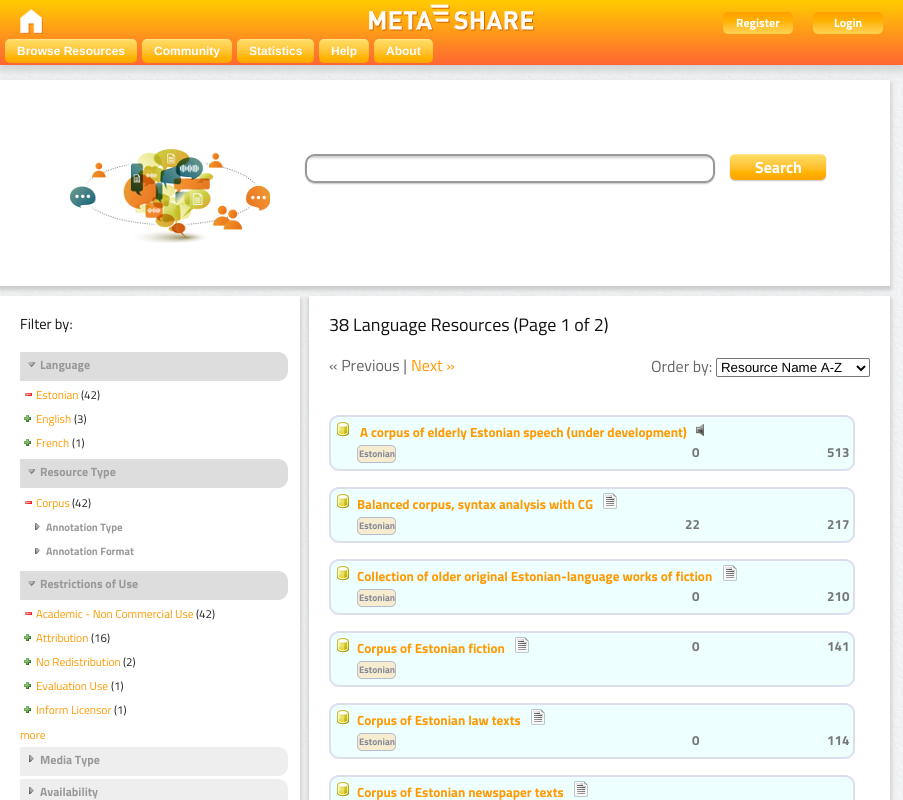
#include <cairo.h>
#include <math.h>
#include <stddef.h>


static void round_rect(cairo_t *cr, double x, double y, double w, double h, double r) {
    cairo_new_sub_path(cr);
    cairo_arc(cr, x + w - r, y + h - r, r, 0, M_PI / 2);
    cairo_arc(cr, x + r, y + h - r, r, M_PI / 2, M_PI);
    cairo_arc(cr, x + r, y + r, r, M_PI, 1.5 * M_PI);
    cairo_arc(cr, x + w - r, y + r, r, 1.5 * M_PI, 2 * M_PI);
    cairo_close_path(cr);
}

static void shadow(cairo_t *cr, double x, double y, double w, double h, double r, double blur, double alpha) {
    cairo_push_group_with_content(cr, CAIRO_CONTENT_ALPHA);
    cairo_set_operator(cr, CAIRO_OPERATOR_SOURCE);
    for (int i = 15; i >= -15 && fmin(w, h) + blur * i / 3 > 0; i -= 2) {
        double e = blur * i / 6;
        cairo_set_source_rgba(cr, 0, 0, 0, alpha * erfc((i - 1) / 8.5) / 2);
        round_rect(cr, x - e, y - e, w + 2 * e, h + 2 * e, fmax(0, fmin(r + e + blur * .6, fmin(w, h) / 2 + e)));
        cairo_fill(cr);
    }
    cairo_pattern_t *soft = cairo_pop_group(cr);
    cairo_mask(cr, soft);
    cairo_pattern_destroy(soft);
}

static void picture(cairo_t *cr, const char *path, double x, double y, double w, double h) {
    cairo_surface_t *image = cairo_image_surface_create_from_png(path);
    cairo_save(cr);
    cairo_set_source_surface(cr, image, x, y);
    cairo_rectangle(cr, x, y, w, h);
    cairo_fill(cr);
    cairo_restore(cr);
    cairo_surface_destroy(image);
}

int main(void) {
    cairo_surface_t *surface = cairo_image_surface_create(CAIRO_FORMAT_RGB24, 903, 800);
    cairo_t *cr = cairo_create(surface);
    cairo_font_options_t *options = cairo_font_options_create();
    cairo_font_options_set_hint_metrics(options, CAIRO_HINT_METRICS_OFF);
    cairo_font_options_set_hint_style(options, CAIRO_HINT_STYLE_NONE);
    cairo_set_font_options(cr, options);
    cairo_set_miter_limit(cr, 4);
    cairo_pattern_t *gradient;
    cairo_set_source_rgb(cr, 1, 1, 1);
    cairo_paint(cr);
    picture(cr, "img1.png", 0, 65, 903, 735);
    cairo_set_source_rgb(cr, 0.8, 0.8, 0.8);
    shadow(cr, 308, 299, 581, 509, 0, 2.5, 1);
    shadow(cr, 310, 299, 581, 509, 0, 2.5, 1);
    cairo_set_source_rgb(cr, 1, 1, 1);
    cairo_rectangle(cr, 309, 296, 581, 504);
    cairo_fill(cr);
    cairo_set_source_rgb(cr, 0.8, 0.8, 0.8);
    shadow(cr, -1, 83, 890, 206, 0, 2.5, 1);
    shadow(cr, 1, 83, 890, 206, 0, 2.5, 1);
    cairo_set_source_rgb(cr, 1, 1, 1);
    cairo_rectangle(cr, 0, 80, 890, 206);
    cairo_fill(cr);
    cairo_set_source_rgb(cr, 0.8, 0.8, 0.8);
    shadow(cr, 0, 5, 903, 65, 0, 5, 1);
    gradient = cairo_pattern_create_linear(0, 0, 0, 65);
    cairo_pattern_add_color_stop_rgba(gradient, 0, 1, 0.8, 0, 1);
    cairo_pattern_add_color_stop_rgba(gradient, 1, 1, 0.4, 0.2, 1);
    cairo_set_source(cr, gradient);
    cairo_pattern_destroy(gradient);
    cairo_rectangle(cr, 0, 0, 903, 65);
    cairo_fill(cr);
    picture(cr, "img2.png", 20, 9, 23, 25);
    picture(cr, "img3.png", 369, 4, 166, 27);
    picture(cr, "img4.png", 723, 12, 70, 22);
    cairo_select_font_face(cr, "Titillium", CAIRO_FONT_SLANT_NORMAL, CAIRO_FONT_WEIGHT_BOLD);
    cairo_set_font_size(cr, 12);
    cairo_set_source_rgb(cr, 1, 1, 1);
    cairo_move_to(cr, 736, 27);
    cairo_show_text(cr, "Register");
    picture(cr, "img5.png", 813, 12, 70, 22);
    cairo_move_to(cr, 834, 27);
    cairo_show_text(cr, "Login");
    picture(cr, "img6.png", 5, 39, 132, 24);
    cairo_select_font_face(cr, "Liberation Sans", CAIRO_FONT_SLANT_NORMAL, CAIRO_FONT_WEIGHT_BOLD);
    cairo_move_to(cr, 17, 55);
    cairo_show_text(cr, "Browse Resources");
    picture(cr, "img7.png", 142, 39, 90, 24);
    cairo_move_to(cr, 154, 55);
    cairo_show_text(cr, "Community");
    picture(cr, "img8.png", 237, 39, 77, 24);
    cairo_move_to(cr, 249, 55);
    cairo_show_text(cr, "Statistics");
    picture(cr, "img9.png", 319, 39, 50, 24);
    cairo_move_to(cr, 331, 55);
    cairo_show_text(cr, "Help");
    picture(cr, "img10.png", 374, 39, 59, 24);
    cairo_move_to(cr, 386, 55);
    cairo_show_text(cr, "About");
    picture(cr, "img11.png", 70, 149, 200, 94);
    cairo_set_source_rgb(cr, 0.8, 0.8, 0.8);
    shadow(cr, 305, 155, 410, 29, 10, 0.5, 1);
    cairo_set_source_rgb(cr, 1, 1, 1);
    round_rect(cr, 305, 154, 410, 29, 10);
    cairo_fill(cr);
    picture(cr, "img12.png", 305, 156, 410, 24);
    round_rect(cr, 306, 155, 408, 27, 9);
    cairo_set_source_rgb(cr, 0.6, 0.6, 0.6);
    cairo_stroke(cr);
    cairo_set_source_rgb(cr, 0.8, 0.8, 0.8);
    shadow(cr, 730, 155, 96, 26, 5, 0.5, 1);
    picture(cr, "img13.png", 730, 154, 96, 26);
    cairo_select_font_face(cr, "Titillium", CAIRO_FONT_SLANT_NORMAL, CAIRO_FONT_WEIGHT_BOLD);
    cairo_set_font_size(cr, 16);
    cairo_set_source_rgb(cr, 1, 1, 1);
    cairo_move_to(cr, 755, 173);
    cairo_show_text(cr, "Search");
    cairo_set_source_rgb(cr, 0.8, 0.8, 0.8);
    shadow(cr, -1, 299, 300, 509, 0, 2.5, 1);
    shadow(cr, 1, 299, 300, 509, 0, 2.5, 1);
    cairo_set_source_rgb(cr, 1, 1, 1);
    cairo_rectangle(cr, 0, 296, 300, 504);
    cairo_fill(cr);
    cairo_select_font_face(cr, "Titillium", CAIRO_FONT_SLANT_NORMAL, CAIRO_FONT_WEIGHT_NORMAL);
    cairo_set_font_size(cr, 14.5);
    cairo_set_source_rgb(cr, 0.067, 0.067, 0.067);
    cairo_move_to(cr, 20, 329);
    cairo_show_text(cr, "Filter by:");
    cairo_set_source_rgb(cr, 0.867, 0.867, 0.867);
    cairo_new_path(cr);
    cairo_move_to(cr, 20, 352);
    cairo_line_to(cr, 278, 352);
    cairo_curve_to(cr, 283.5, 352, 288, 356.5, 288, 362);
    cairo_line_to(cr, 288, 371);
    cairo_curve_to(cr, 288, 376.5, 283.5, 381, 278, 381);
    cairo_line_to(cr, 20, 381);
    cairo_close_path(cr);
    cairo_fill(cr);
    picture(cr, "img14.png", 28, 362, 7, 5);
    cairo_select_font_face(cr, "Titillium", CAIRO_FONT_SLANT_NORMAL, CAIRO_FONT_WEIGHT_BOLD);
    cairo_set_font_size(cr, 12);
    cairo_set_source_rgb(cr, 0.6, 0.6, 0.6);
    cairo_move_to(cr, 40, 369);
    cairo_show_text(cr, "Language");
    picture(cr, "img15.png", 25, 393, 7, 3);
    cairo_select_font_face(cr, "Titillium", CAIRO_FONT_SLANT_NORMAL, CAIRO_FONT_WEIGHT_NORMAL);
    cairo_set_font_size(cr, 11.5);
    cairo_set_source_rgb(cr, 1, 0.6, 0);
    cairo_move_to(cr, 36, 399);
    cairo_show_text(cr, "Estonian");
    cairo_set_source_rgb(cr, 0.133, 0.133, 0.133);
    cairo_move_to(cr, 81, 399);
    cairo_show_text(cr, "(42)");
    picture(cr, "img16.png", 24, 415, 7, 7);
    cairo_set_source_rgb(cr, 1, 0.6, 0);
    cairo_move_to(cr, 36, 423);
    cairo_show_text(cr, "English");
    cairo_set_source_rgb(cr, 0.133, 0.133, 0.133);
    cairo_move_to(cr, 74, 423);
    cairo_show_text(cr, "(3)");
    picture(cr, "img16.png", 24, 439, 7, 7);
    cairo_set_source_rgb(cr, 1, 0.6, 0);
    cairo_move_to(cr, 36, 447);
    cairo_show_text(cr, "French");
    cairo_set_source_rgb(cr, 0.133, 0.133, 0.133);
    cairo_move_to(cr, 72, 447);
    cairo_show_text(cr, "(1)");
    cairo_set_source_rgb(cr, 0.867, 0.867, 0.867);
    cairo_new_path(cr);
    cairo_move_to(cr, 20, 459);
    cairo_line_to(cr, 278, 459);
    cairo_curve_to(cr, 283.5, 459, 288, 463.5, 288, 469);
    cairo_line_to(cr, 288, 478);
    cairo_curve_to(cr, 288, 483.5, 283.5, 488, 278, 488);
    cairo_line_to(cr, 20, 488);
    cairo_close_path(cr);
    cairo_fill(cr);
    picture(cr, "img14.png", 28, 469, 7, 5);
    cairo_select_font_face(cr, "Titillium", CAIRO_FONT_SLANT_NORMAL, CAIRO_FONT_WEIGHT_BOLD);
    cairo_set_font_size(cr, 12);
    cairo_set_source_rgb(cr, 0.6, 0.6, 0.6);
    cairo_move_to(cr, 40, 476);
    cairo_show_text(cr, "Resource Type");
    picture(cr, "img15.png", 25, 501, 7, 3);
    cairo_select_font_face(cr, "Titillium", CAIRO_FONT_SLANT_NORMAL, CAIRO_FONT_WEIGHT_NORMAL);
    cairo_set_font_size(cr, 11.5);
    cairo_set_source_rgb(cr, 1, 0.6, 0);
    cairo_move_to(cr, 36, 507);
    cairo_show_text(cr, "Corpus");
    cairo_set_source_rgb(cr, 0.133, 0.133, 0.133);
    cairo_move_to(cr, 72, 507);
    cairo_show_text(cr, "(42)");
    picture(cr, "img17.png", 35, 523, 5, 7);
    cairo_select_font_face(cr, "Titillium", CAIRO_FONT_SLANT_NORMAL, CAIRO_FONT_WEIGHT_BOLD);
    cairo_set_font_size(cr, 10.75);
    cairo_set_source_rgb(cr, 0.6, 0.6, 0.6);
    cairo_move_to(cr, 46, 531);
    cairo_show_text(cr, "Annotation Type");
    picture(cr, "img18.png", 35, 548, 5, 6);
    cairo_move_to(cr, 46, 555);
    cairo_show_text(cr, "Annotation Format");
    cairo_set_source_rgb(cr, 0.867, 0.867, 0.867);
    cairo_new_path(cr);
    cairo_move_to(cr, 20, 571);
    cairo_line_to(cr, 278, 571);
    cairo_curve_to(cr, 283.5, 571, 288, 575.5, 288, 581);
    cairo_line_to(cr, 288, 590);
    cairo_curve_to(cr, 288, 595.5, 283.5, 600, 278, 600);
    cairo_line_to(cr, 20, 600);
    cairo_close_path(cr);
    cairo_fill(cr);
    picture(cr, "img14.png", 28, 581, 7, 5);
    cairo_set_font_size(cr, 12);
    cairo_set_source_rgb(cr, 0.6, 0.6, 0.6);
    cairo_move_to(cr, 40, 588);
    cairo_show_text(cr, "Restrictions of Use");
    picture(cr, "img15.png", 25, 612, 7, 3);
    cairo_select_font_face(cr, "Titillium", CAIRO_FONT_SLANT_NORMAL, CAIRO_FONT_WEIGHT_NORMAL);
    cairo_set_font_size(cr, 11.5);
    cairo_set_source_rgb(cr, 1, 0.6, 0);
    cairo_move_to(cr, 36, 618);
    cairo_show_text(cr, "Academic - Non Commercial Use");
    cairo_set_source_rgb(cr, 0.133, 0.133, 0.133);
    cairo_move_to(cr, 196, 618);
    cairo_show_text(cr, "(42)");
    picture(cr, "img16.png", 24, 634, 7, 7);
    cairo_set_source_rgb(cr, 1, 0.6, 0);
    cairo_move_to(cr, 36, 642);
    cairo_show_text(cr, "Attribution");
    cairo_set_source_rgb(cr, 0.133, 0.133, 0.133);
    cairo_move_to(cr, 91, 642);
    cairo_show_text(cr, "(16)");
    picture(cr, "img16.png", 24, 658, 7, 7);
    cairo_set_source_rgb(cr, 1, 0.6, 0);
    cairo_move_to(cr, 36, 666);
    cairo_show_text(cr, "No Redistribution");
    cairo_set_source_rgb(cr, 0.133, 0.133, 0.133);
    cairo_move_to(cr, 123, 666);
    cairo_show_text(cr, "(2)");
    picture(cr, "img16.png", 24, 682, 7, 7);
    cairo_set_source_rgb(cr, 1, 0.6, 0);
    cairo_move_to(cr, 36, 690);
    cairo_show_text(cr, "Evaluation Use");
    cairo_set_source_rgb(cr, 0.133, 0.133, 0.133);
    cairo_move_to(cr, 111, 690);
    cairo_show_text(cr, "(1)");
    picture(cr, "img16.png", 24, 706, 7, 7);
    cairo_set_source_rgb(cr, 1, 0.6, 0);
    cairo_move_to(cr, 36, 714);
    cairo_show_text(cr, "Inform Licensor");
    cairo_set_source_rgb(cr, 0.133, 0.133, 0.133);
    cairo_move_to(cr, 114, 714);
    cairo_show_text(cr, "(1)");
    cairo_set_source_rgb(cr, 1, 0.6, 0);
    cairo_move_to(cr, 20, 739);
    cairo_show_text(cr, "more");
    cairo_set_source_rgb(cr, 0.933, 0.933, 0.933);
    cairo_new_path(cr);
    cairo_move_to(cr, 20, 747);
    cairo_line_to(cr, 278, 747);
    cairo_curve_to(cr, 283.5, 747, 288, 751.5, 288, 757);
    cairo_line_to(cr, 288, 766);
    cairo_curve_to(cr, 288, 771.5, 283.5, 776, 278, 776);
    cairo_line_to(cr, 20, 776);
    cairo_close_path(cr);
    cairo_fill(cr);
    picture(cr, "img19.png", 29, 755, 5, 7);
    cairo_select_font_face(cr, "Titillium", CAIRO_FONT_SLANT_NORMAL, CAIRO_FONT_WEIGHT_BOLD);
    cairo_set_font_size(cr, 12);
    cairo_set_source_rgb(cr, 0.6, 0.6, 0.6);
    cairo_move_to(cr, 40, 764);
    cairo_show_text(cr, "Media Type");
    cairo_set_source_rgb(cr, 0.933, 0.933, 0.933);
    cairo_new_path(cr);
    cairo_move_to(cr, 20, 779);
    cairo_line_to(cr, 278, 779);
    cairo_curve_to(cr, 283.5, 779, 288, 783.5, 288, 789);
    cairo_line_to(cr, 288, 798);
    cairo_curve_to(cr, 288, 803.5, 283.5, 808, 278, 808);
    cairo_line_to(cr, 20, 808);
    cairo_close_path(cr);
    cairo_fill(cr);
    picture(cr, "img19.png", 29, 787, 5, 7);
    cairo_set_source_rgb(cr, 0.6, 0.6, 0.6);
    cairo_move_to(cr, 40, 796);
    cairo_show_text(cr, "Availability");
    cairo_select_font_face(cr, "Titillium", CAIRO_FONT_SLANT_NORMAL, CAIRO_FONT_WEIGHT_NORMAL);
    cairo_set_font_size(cr, 18);
    cairo_set_source_rgb(cr, 0.067, 0.067, 0.067);
    cairo_move_to(cr, 329, 331);
    cairo_show_text(cr, "38 Language Resources (Page 1 of 2)");
    cairo_set_font_size(cr, 16);
    cairo_set_source_rgb(cr, 0.4, 0.4, 0.4);
    cairo_move_to(cr, 329, 371);
    cairo_show_text(cr, "« Previous |");
    cairo_set_source_rgb(cr, 1, 0.6, 0);
    cairo_move_to(cr, 411, 371);
    cairo_show_text(cr, "Next »");
    cairo_set_source_rgb(cr, 0.4, 0.4, 0.4);
    cairo_move_to(cr, 651, 372);
    cairo_show_text(cr, "Order by:");
    round_rect(cr, 716.5, 358.5, 153, 18, 1.5);
    cairo_set_source_rgb(cr, 0.463, 0.463, 0.463);
    cairo_set_line_width(cr, 1);
    cairo_stroke(cr);
    cairo_new_path(cr);
    cairo_move_to(cr, 857, 366);
    cairo_line_to(cr, 861, 370);
    cairo_line_to(cr, 865, 366);
    cairo_set_source_rgb(cr, 0, 0, 0);
    cairo_set_line_width(cr, 2);
    cairo_stroke(cr);
    cairo_select_font_face(cr, "Liberation Sans", CAIRO_FONT_SLANT_NORMAL, CAIRO_FONT_WEIGHT_NORMAL);
    cairo_set_font_size(cr, 13.3);
    cairo_move_to(cr, 721, 372);
    cairo_show_text(cr, "Resource Name A-Z");
    cairo_set_source_rgb(cr, 0.933, 1, 1);
    round_rect(cr, 330, 416, 524, 54, 9);
    cairo_fill_preserve(cr);
    cairo_set_source_rgb(cr, 0.867, 0.867, 0.933);
    cairo_stroke(cr);
    picture(cr, "img20.png", 337, 422, 12, 15);
    cairo_select_font_face(cr, "Titillium", CAIRO_FONT_SLANT_NORMAL, CAIRO_FONT_WEIGHT_BOLD);
    cairo_set_source_rgb(cr, 1, 0.6, 0);
    cairo_move_to(cr, 360, 437);
    cairo_show_text(cr, "A corpus of elderly Estonian speech (under development)");
    picture(cr, "img21.png", 696, 424, 8, 12);
    cairo_set_source_rgb(cr, 0.961, 0.925, 0.808);
    round_rect(cr, 357.5, 445.5, 38, 17, 4.5);
    cairo_fill_preserve(cr);
    cairo_set_source_rgb(cr, 0.733, 0.733, 0.8);
    cairo_set_line_width(cr, 1);
    cairo_stroke(cr);
    cairo_set_font_size(cr, 9.5);
    cairo_set_source_rgb(cr, 0.533, 0.533, 0.6);
    cairo_move_to(cr, 359, 457);
    cairo_show_text(cr, "Estonian");
    cairo_set_font_size(cr, 13.3);
    cairo_set_source_rgb(cr, 0.467, 0.467, 0.467);
    cairo_move_to(cr, 692, 457);
    cairo_show_text(cr, "0");
    cairo_move_to(cr, 827, 457);
    cairo_show_text(cr, "513");
    cairo_set_source_rgb(cr, 0.933, 1, 1);
    round_rect(cr, 330, 488, 524, 54, 9);
    cairo_fill_preserve(cr);
    cairo_set_source_rgb(cr, 0.867, 0.867, 0.933);
    cairo_set_line_width(cr, 2);
    cairo_stroke(cr);
    picture(cr, "img20.png", 337, 494, 12, 15);
    cairo_set_source_rgb(cr, 1, 0.6, 0);
    cairo_move_to(cr, 357, 509);
    cairo_show_text(cr, "Balanced corpus, syntax analysis with CG");
    picture(cr, "img22.png", 603, 493, 14, 16);
    cairo_set_source_rgb(cr, 0.961, 0.925, 0.808);
    round_rect(cr, 357.5, 517.5, 38, 17, 4.5);
    cairo_fill_preserve(cr);
    cairo_set_source_rgb(cr, 0.733, 0.733, 0.8);
    cairo_set_line_width(cr, 1);
    cairo_stroke(cr);
    cairo_set_font_size(cr, 9.5);
    cairo_set_source_rgb(cr, 0.533, 0.533, 0.6);
    cairo_move_to(cr, 359, 529);
    cairo_show_text(cr, "Estonian");
    cairo_set_font_size(cr, 13.3);
    cairo_set_source_rgb(cr, 0.467, 0.467, 0.467);
    cairo_move_to(cr, 685, 529);
    cairo_show_text(cr, "22");
    cairo_move_to(cr, 827, 529);
    cairo_show_text(cr, "217");
    cairo_set_source_rgb(cr, 0.933, 1, 1);
    round_rect(cr, 330, 560, 524, 54, 9);
    cairo_fill_preserve(cr);
    cairo_set_source_rgb(cr, 0.867, 0.867, 0.933);
    cairo_set_line_width(cr, 2);
    cairo_stroke(cr);
    picture(cr, "img20.png", 337, 566, 12, 15);
    cairo_set_source_rgb(cr, 1, 0.6, 0);
    cairo_move_to(cr, 357, 581);
    cairo_show_text(cr, "Collection of older original Estonian-language works of fiction");
    picture(cr, "img22.png", 723, 565, 14, 16);
    cairo_set_source_rgb(cr, 0.961, 0.925, 0.808);
    round_rect(cr, 357.5, 589.5, 38, 17, 4.5);
    cairo_fill_preserve(cr);
    cairo_set_source_rgb(cr, 0.733, 0.733, 0.8);
    cairo_set_line_width(cr, 1);
    cairo_stroke(cr);
    cairo_set_font_size(cr, 9.5);
    cairo_set_source_rgb(cr, 0.533, 0.533, 0.6);
    cairo_move_to(cr, 359, 601);
    cairo_show_text(cr, "Estonian");
    cairo_set_font_size(cr, 13.3);
    cairo_set_source_rgb(cr, 0.467, 0.467, 0.467);
    cairo_move_to(cr, 692, 601);
    cairo_show_text(cr, "0");
    cairo_move_to(cr, 827, 601);
    cairo_show_text(cr, "210");
    cairo_set_source_rgb(cr, 0.933, 1, 1);
    round_rect(cr, 330, 632, 524, 54, 9);
    cairo_fill_preserve(cr);
    cairo_set_source_rgb(cr, 0.867, 0.867, 0.933);
    cairo_set_line_width(cr, 2);
    cairo_stroke(cr);
    picture(cr, "img20.png", 337, 638, 12, 15);
    cairo_set_source_rgb(cr, 1, 0.6, 0);
    cairo_move_to(cr, 357, 653);
    cairo_show_text(cr, "Corpus of Estonian fiction");
    picture(cr, "img22.png", 515, 637, 14, 16);
    cairo_set_source_rgb(cr, 0.467, 0.467, 0.467);
    cairo_move_to(cr, 692, 651);
    cairo_show_text(cr, "0");
    cairo_move_to(cr, 827, 651);
    cairo_show_text(cr, "141");
    cairo_set_source_rgb(cr, 0.961, 0.925, 0.808);
    round_rect(cr, 357.5, 661.5, 38, 17, 4.5);
    cairo_fill_preserve(cr);
    cairo_set_source_rgb(cr, 0.733, 0.733, 0.8);
    cairo_set_line_width(cr, 1);
    cairo_stroke(cr);
    cairo_set_font_size(cr, 9.5);
    cairo_set_source_rgb(cr, 0.533, 0.533, 0.6);
    cairo_move_to(cr, 359, 673);
    cairo_show_text(cr, "Estonian");
    cairo_set_source_rgb(cr, 0.933, 1, 1);
    round_rect(cr, 330, 704, 524, 54, 9);
    cairo_fill_preserve(cr);
    cairo_set_source_rgb(cr, 0.867, 0.867, 0.933);
    cairo_set_line_width(cr, 2);
    cairo_stroke(cr);
    picture(cr, "img20.png", 337, 710, 12, 15);
    cairo_set_font_size(cr, 13.3);
    cairo_set_source_rgb(cr, 1, 0.6, 0);
    cairo_move_to(cr, 357, 725);
    cairo_show_text(cr, "Corpus of Estonian law texts");
    picture(cr, "img22.png", 531, 709, 14, 16);
    cairo_set_source_rgb(cr, 0.961, 0.925, 0.808);
    round_rect(cr, 357.5, 733.5, 38, 17, 4.5);
    cairo_fill_preserve(cr);
    cairo_set_source_rgb(cr, 0.733, 0.733, 0.8);
    cairo_set_line_width(cr, 1);
    cairo_stroke(cr);
    cairo_set_font_size(cr, 9.5);
    cairo_set_source_rgb(cr, 0.533, 0.533, 0.6);
    cairo_move_to(cr, 359, 745);
    cairo_show_text(cr, "Estonian");
    cairo_set_font_size(cr, 13.3);
    cairo_set_source_rgb(cr, 0.467, 0.467, 0.467);
    cairo_move_to(cr, 692, 745);
    cairo_show_text(cr, "0");
    cairo_move_to(cr, 827, 745);
    cairo_show_text(cr, "114");
    cairo_set_source_rgb(cr, 0.933, 1, 1);
    round_rect(cr, 330, 776, 524, 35, 9);
    cairo_fill_preserve(cr);
    cairo_set_source_rgb(cr, 0.867, 0.867, 0.933);
    cairo_set_line_width(cr, 2);
    cairo_stroke(cr);
    picture(cr, "img20.png", 337, 782, 12, 15);
    cairo_set_source_rgb(cr, 1, 0.6, 0);
    cairo_move_to(cr, 357, 797);
    cairo_show_text(cr, "Corpus of Estonian newspaper texts");
    picture(cr, "img22.png", 574, 781, 14, 16);
    cairo_surface_write_to_png(surface, "page.png");
    cairo_font_options_destroy(options);
    cairo_destroy(cr);
    cairo_surface_destroy(surface);
    return 0;
}
